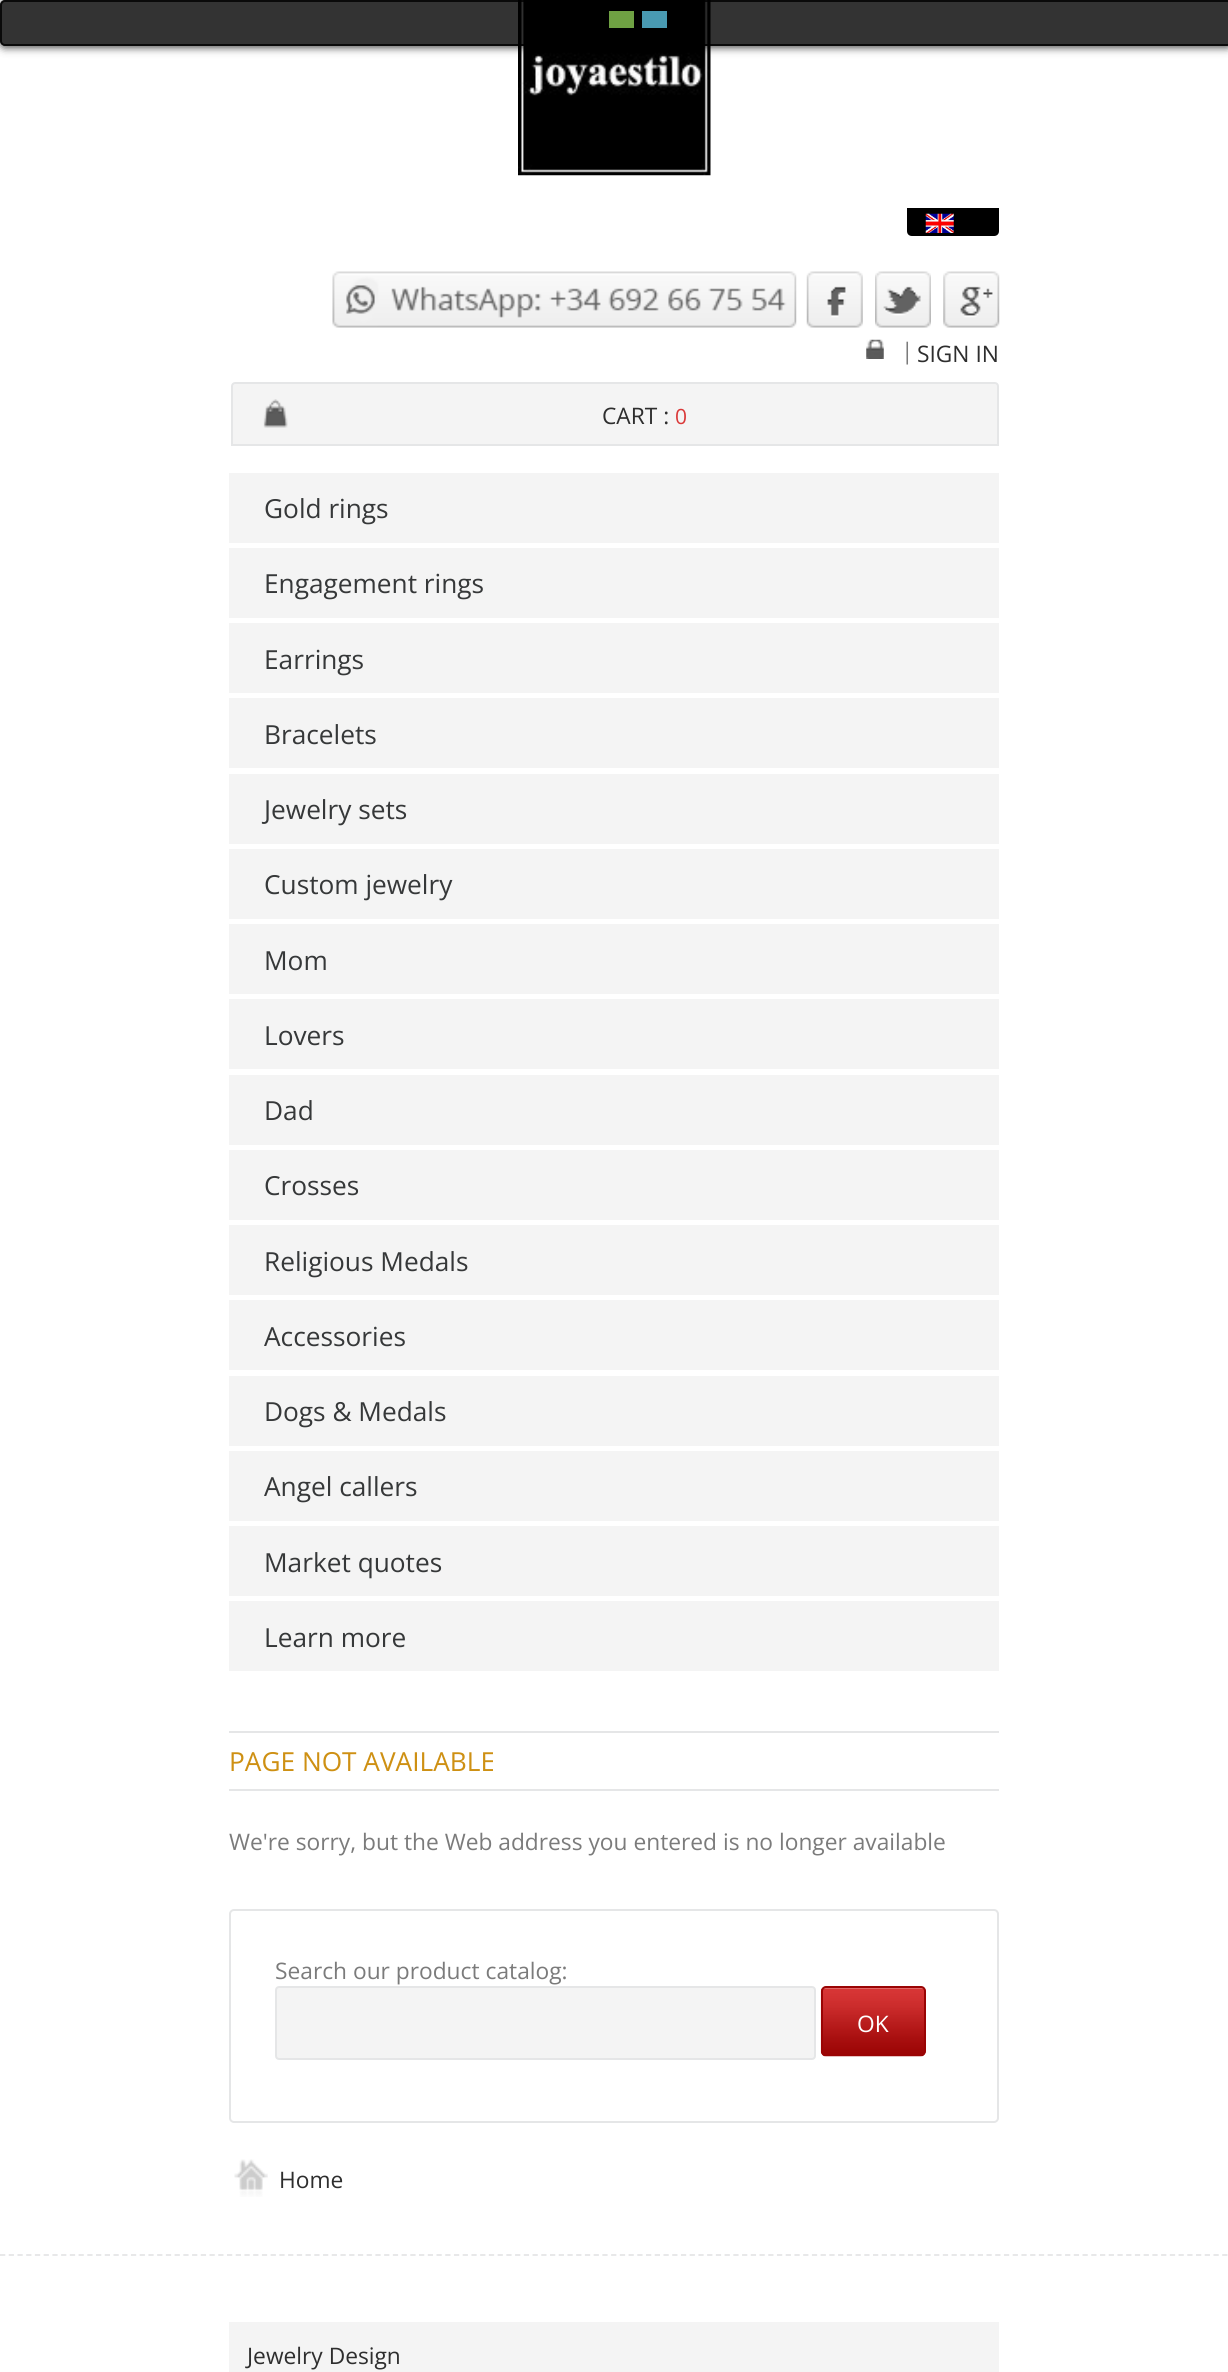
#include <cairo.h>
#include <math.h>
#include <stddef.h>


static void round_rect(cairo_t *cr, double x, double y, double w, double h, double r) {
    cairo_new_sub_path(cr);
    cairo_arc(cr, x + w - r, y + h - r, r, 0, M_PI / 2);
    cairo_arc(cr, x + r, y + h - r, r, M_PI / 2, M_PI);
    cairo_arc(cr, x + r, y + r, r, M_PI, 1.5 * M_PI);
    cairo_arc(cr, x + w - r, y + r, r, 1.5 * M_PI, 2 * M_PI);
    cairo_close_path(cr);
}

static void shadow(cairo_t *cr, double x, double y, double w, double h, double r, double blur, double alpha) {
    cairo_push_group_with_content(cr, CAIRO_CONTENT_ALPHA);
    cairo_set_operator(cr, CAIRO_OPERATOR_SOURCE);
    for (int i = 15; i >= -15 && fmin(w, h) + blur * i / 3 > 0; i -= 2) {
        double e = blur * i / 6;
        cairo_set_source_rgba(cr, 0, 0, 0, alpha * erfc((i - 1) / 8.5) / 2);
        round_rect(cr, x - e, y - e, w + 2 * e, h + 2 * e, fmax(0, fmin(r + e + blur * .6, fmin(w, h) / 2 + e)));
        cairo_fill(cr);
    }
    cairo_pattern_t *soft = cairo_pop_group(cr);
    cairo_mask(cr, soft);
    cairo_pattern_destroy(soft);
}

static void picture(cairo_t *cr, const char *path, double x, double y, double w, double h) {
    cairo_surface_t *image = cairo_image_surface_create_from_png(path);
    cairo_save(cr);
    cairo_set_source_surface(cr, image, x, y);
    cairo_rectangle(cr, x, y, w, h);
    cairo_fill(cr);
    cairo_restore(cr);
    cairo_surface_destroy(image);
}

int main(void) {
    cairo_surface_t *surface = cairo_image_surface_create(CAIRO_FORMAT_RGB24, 1228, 2372);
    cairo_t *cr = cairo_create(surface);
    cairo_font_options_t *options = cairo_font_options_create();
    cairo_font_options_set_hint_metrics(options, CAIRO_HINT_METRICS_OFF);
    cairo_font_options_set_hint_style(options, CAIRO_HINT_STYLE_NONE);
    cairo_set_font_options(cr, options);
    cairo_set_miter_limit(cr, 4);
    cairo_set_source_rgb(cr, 1, 1, 1);
    cairo_paint(cr);
    picture(cr, "img1.png", 518, 0, 193, 176);
    cairo_save(cr);
    cairo_set_fill_rule(cr, CAIRO_FILL_RULE_EVEN_ODD);
    cairo_new_path(cr);
    cairo_move_to(cr, 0, 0);
    cairo_line_to(cr, 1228, 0);
    cairo_line_to(cr, 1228, 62);
    cairo_line_to(cr, 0, 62);
    cairo_close_path(cr);
    cairo_move_to(cr, 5, 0);
    cairo_line_to(cr, 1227, 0);
    cairo_curve_to(cr, 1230, 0, 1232, 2, 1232, 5);
    cairo_line_to(cr, 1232, 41);
    cairo_curve_to(cr, 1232, 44, 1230, 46, 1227, 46);
    cairo_line_to(cr, 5, 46);
    cairo_curve_to(cr, 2, 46, 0, 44, 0, 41);
    cairo_line_to(cr, 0, 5);
    cairo_curve_to(cr, 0, 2, 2, 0, 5, 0);
    cairo_close_path(cr);
    cairo_clip(cr);
    cairo_set_source_rgb(cr, 0, 0, 0);
    shadow(cr, 0, 2, 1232, 45, 5, 4.5, 0.8);
    cairo_restore(cr);
    cairo_set_source_rgba(cr, 0, 0, 0, 0.8);
    round_rect(cr, 0, 0, 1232, 46, 5);
    cairo_fill(cr);
    round_rect(cr, 1, 1, 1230, 44, 4);
    cairo_stroke(cr);
    cairo_set_source_rgb(cr, 0.435, 0.631, 0.263);
    cairo_rectangle(cr, 609, 11, 25, 17);
    cairo_fill(cr);
    cairo_set_source_rgb(cr, 0.286, 0.604, 0.698);
    cairo_rectangle(cr, 642, 11, 25, 17);
    cairo_fill(cr);
    cairo_set_source_rgb(cr, 0, 0, 0);
    cairo_new_path(cr);
    cairo_move_to(cr, 907, 208);
    cairo_line_to(cr, 999, 208);
    cairo_line_to(cr, 999, 231);
    cairo_curve_to(cr, 999, 234, 997, 236, 994, 236);
    cairo_line_to(cr, 912, 236);
    cairo_curve_to(cr, 909, 236, 907, 234, 907, 231);
    cairo_close_path(cr);
    cairo_fill(cr);
    picture(cr, "img2.png", 925, 213, 29, 20);
    picture(cr, "img3.png", 332, 271, 465, 57);
    picture(cr, "img4.png", 806, 271, 57, 57);
    picture(cr, "img5.png", 875, 271, 56, 57);
    picture(cr, "img6.png", 943, 271, 57, 57);
    picture(cr, "img7.png", 866, 339, 18, 20);
    cairo_select_font_face(cr, "Open Sans", CAIRO_FONT_SLANT_NORMAL, CAIRO_FONT_WEIGHT_NORMAL);
    cairo_set_font_size(cr, 22.75);
    cairo_set_source_rgb(cr, 0.482, 0.482, 0.482);
    cairo_move_to(cr, 901, 359);
    cairo_show_text(cr, "|");
    cairo_set_source_rgb(cr, 0.18, 0.18, 0.18);
    cairo_move_to(cr, 917, 362);
    cairo_show_text(cr, "SIGN IN");
    cairo_set_source_rgb(cr, 0.957, 0.957, 0.957);
    cairo_new_path(cr);
    cairo_move_to(cr, 235, 383);
    cairo_line_to(cr, 995, 383);
    cairo_curve_to(cr, 996.5, 383, 998, 384.5, 998, 386);
    cairo_line_to(cr, 998, 445);
    cairo_line_to(cr, 232, 445);
    cairo_line_to(cr, 232, 386);
    cairo_curve_to(cr, 232, 384.5, 233.5, 383, 235, 383);
    cairo_close_path(cr);
    cairo_fill_preserve(cr);
    cairo_set_source_rgb(cr, 0.898, 0.902, 0.906);
    cairo_stroke(cr);
    picture(cr, "img8.png", 263, 399, 25, 29);
    cairo_set_source_rgb(cr, 0.18, 0.18, 0.18);
    cairo_move_to(cr, 602, 424);
    cairo_show_text(cr, "CART :");
    cairo_set_font_size(cr, 21);
    cairo_set_source_rgb(cr, 0.855, 0.22, 0.22);
    cairo_move_to(cr, 675, 424);
    cairo_show_text(cr, "0");
    cairo_set_source_rgb(cr, 0.957, 0.957, 0.957);
    cairo_rectangle(cr, 229, 473, 770, 70);
    cairo_fill(cr);
    cairo_set_font_size(cr, 26.25);
    cairo_set_source_rgb(cr, 0.212, 0.22, 0.224);
    cairo_move_to(cr, 264, 518);
    cairo_show_text(cr, "Gold rings");
    cairo_set_source_rgb(cr, 0.957, 0.957, 0.957);
    cairo_rectangle(cr, 229, 548, 770, 70);
    cairo_fill(cr);
    cairo_set_source_rgb(cr, 0.212, 0.22, 0.224);
    cairo_move_to(cr, 264, 593);
    cairo_show_text(cr, "Engagement rings");
    cairo_set_source_rgb(cr, 0.957, 0.957, 0.957);
    cairo_rectangle(cr, 229, 623, 770, 70);
    cairo_fill(cr);
    cairo_set_source_rgb(cr, 0.212, 0.22, 0.224);
    cairo_move_to(cr, 264, 669);
    cairo_show_text(cr, "Earrings");
    cairo_set_source_rgb(cr, 0.957, 0.957, 0.957);
    cairo_rectangle(cr, 229, 698, 770, 70);
    cairo_fill(cr);
    cairo_set_source_rgb(cr, 0.212, 0.22, 0.224);
    cairo_move_to(cr, 264, 744);
    cairo_show_text(cr, "Bracelets");
    cairo_set_source_rgb(cr, 0.957, 0.957, 0.957);
    cairo_rectangle(cr, 229, 774, 770, 70);
    cairo_fill(cr);
    cairo_set_source_rgb(cr, 0.212, 0.22, 0.224);
    cairo_move_to(cr, 264, 819);
    cairo_show_text(cr, "Jewelry sets");
    cairo_set_source_rgb(cr, 0.957, 0.957, 0.957);
    cairo_rectangle(cr, 229, 849, 770, 70);
    cairo_fill(cr);
    cairo_set_source_rgb(cr, 0.212, 0.22, 0.224);
    cairo_move_to(cr, 264, 894);
    cairo_show_text(cr, "Custom jewelry");
    cairo_set_source_rgb(cr, 0.957, 0.957, 0.957);
    cairo_rectangle(cr, 229, 924, 770, 70);
    cairo_fill(cr);
    cairo_set_source_rgb(cr, 0.212, 0.22, 0.224);
    cairo_move_to(cr, 264, 970);
    cairo_show_text(cr, "Mom");
    cairo_set_source_rgb(cr, 0.957, 0.957, 0.957);
    cairo_rectangle(cr, 229, 999, 770, 70);
    cairo_fill(cr);
    cairo_set_source_rgb(cr, 0.212, 0.22, 0.224);
    cairo_move_to(cr, 264, 1045);
    cairo_show_text(cr, "Lovers");
    cairo_set_source_rgb(cr, 0.957, 0.957, 0.957);
    cairo_rectangle(cr, 229, 1075, 770, 70);
    cairo_fill(cr);
    cairo_set_source_rgb(cr, 0.212, 0.22, 0.224);
    cairo_move_to(cr, 264, 1120);
    cairo_show_text(cr, "Dad");
    cairo_set_source_rgb(cr, 0.957, 0.957, 0.957);
    cairo_rectangle(cr, 229, 1150, 770, 70);
    cairo_fill(cr);
    cairo_set_source_rgb(cr, 0.212, 0.22, 0.224);
    cairo_move_to(cr, 264, 1195);
    cairo_show_text(cr, "Crosses");
    cairo_set_source_rgb(cr, 0.957, 0.957, 0.957);
    cairo_rectangle(cr, 229, 1225, 770, 70);
    cairo_fill(cr);
    cairo_set_source_rgb(cr, 0.212, 0.22, 0.224);
    cairo_move_to(cr, 264, 1271);
    cairo_show_text(cr, "Religious Medals");
    cairo_set_source_rgb(cr, 0.957, 0.957, 0.957);
    cairo_rectangle(cr, 229, 1300, 770, 70);
    cairo_fill(cr);
    cairo_set_source_rgb(cr, 0.212, 0.22, 0.224);
    cairo_move_to(cr, 264, 1346);
    cairo_show_text(cr, "Accessories");
    cairo_set_source_rgb(cr, 0.957, 0.957, 0.957);
    cairo_rectangle(cr, 229, 1376, 770, 70);
    cairo_fill(cr);
    cairo_set_source_rgb(cr, 0.212, 0.22, 0.224);
    cairo_move_to(cr, 264, 1421);
    cairo_show_text(cr, "Dogs & Medals");
    cairo_set_source_rgb(cr, 0.957, 0.957, 0.957);
    cairo_rectangle(cr, 229, 1451, 770, 70);
    cairo_fill(cr);
    cairo_set_source_rgb(cr, 0.212, 0.22, 0.224);
    cairo_move_to(cr, 264, 1496);
    cairo_show_text(cr, "Angel callers");
    cairo_set_source_rgb(cr, 0.957, 0.957, 0.957);
    cairo_rectangle(cr, 229, 1526, 770, 70);
    cairo_fill(cr);
    cairo_set_source_rgb(cr, 0.212, 0.22, 0.224);
    cairo_move_to(cr, 264, 1572);
    cairo_show_text(cr, "Market quotes");
    cairo_set_source_rgb(cr, 0.957, 0.957, 0.957);
    cairo_rectangle(cr, 229, 1601, 770, 70);
    cairo_fill(cr);
    cairo_set_source_rgb(cr, 0.212, 0.22, 0.224);
    cairo_move_to(cr, 264, 1647);
    cairo_show_text(cr, "Learn more");
    cairo_set_source_rgb(cr, 0.898, 0.902, 0.906);
    cairo_rectangle(cr, 229, 1731, 770, 2);
    cairo_fill(cr);
    cairo_rectangle(cr, 229, 1789, 770, 2);
    cairo_fill(cr);
    cairo_set_source_rgb(cr, 0.808, 0.565, 0.078);
    cairo_move_to(cr, 229, 1771);
    cairo_show_text(cr, "PAGE NOT AVAILABLE");
    cairo_set_font_size(cr, 22.75);
    cairo_set_source_rgb(cr, 0.482, 0.482, 0.482);
    cairo_move_to(cr, 229, 1850);
    cairo_show_text(cr, "We're sorry, but the Web address you entered is no longer available");
    round_rect(cr, 230, 1910, 768, 212, 4);
    cairo_set_source_rgb(cr, 0.898, 0.902, 0.906);
    cairo_stroke(cr);
    cairo_set_source_rgb(cr, 0.482, 0.482, 0.482);
    cairo_move_to(cr, 275, 1979);
    cairo_show_text(cr, "Search our product catalog:");
    cairo_set_source_rgb(cr, 0.957, 0.957, 0.957);
    round_rect(cr, 276, 1987, 539, 72, 3);
    cairo_fill_preserve(cr);
    cairo_set_source_rgb(cr, 0.898, 0.902, 0.906);
    cairo_stroke(cr);
    picture(cr, "img9.png", 820, 1988, 106, 69);
    round_rect(cr, 822, 1987, 103, 68, 4);
    cairo_set_source_rgb(cr, 0.604, 0.016, 0.016);
    cairo_stroke(cr);
    cairo_set_source_rgb(cr, 1, 1, 1);
    cairo_move_to(cr, 857, 2032);
    cairo_show_text(cr, "OK");
    picture(cr, "img10.png", 234, 2159, 34, 38);
    cairo_set_source_rgb(cr, 0.18, 0.18, 0.18);
    cairo_move_to(cr, 279, 2188);
    cairo_show_text(cr, "Home");
    cairo_new_path(cr);
    cairo_move_to(cr, 0, 2255);
    cairo_line_to(cr, 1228.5, 2255);
    cairo_set_source_rgb(cr, 0.898, 0.902, 0.906);
    cairo_set_line_width(cr, 1.8);
    cairo_set_dash(cr, (double[]){5.25, 3.48}, 2, 0);
    cairo_stroke(cr);
    cairo_set_source_rgb(cr, 0.957, 0.957, 0.957);
    cairo_rectangle(cr, 229, 2322, 770, 50);
    cairo_fill(cr);
    cairo_set_source_rgb(cr, 0.18, 0.18, 0.18);
    cairo_move_to(cr, 247, 2364);
    cairo_show_text(cr, "Jewelry Design");
    cairo_surface_write_to_png(surface, "page.png");
    cairo_font_options_destroy(options);
    cairo_destroy(cr);
    cairo_surface_destroy(surface);
    return 0;
}
